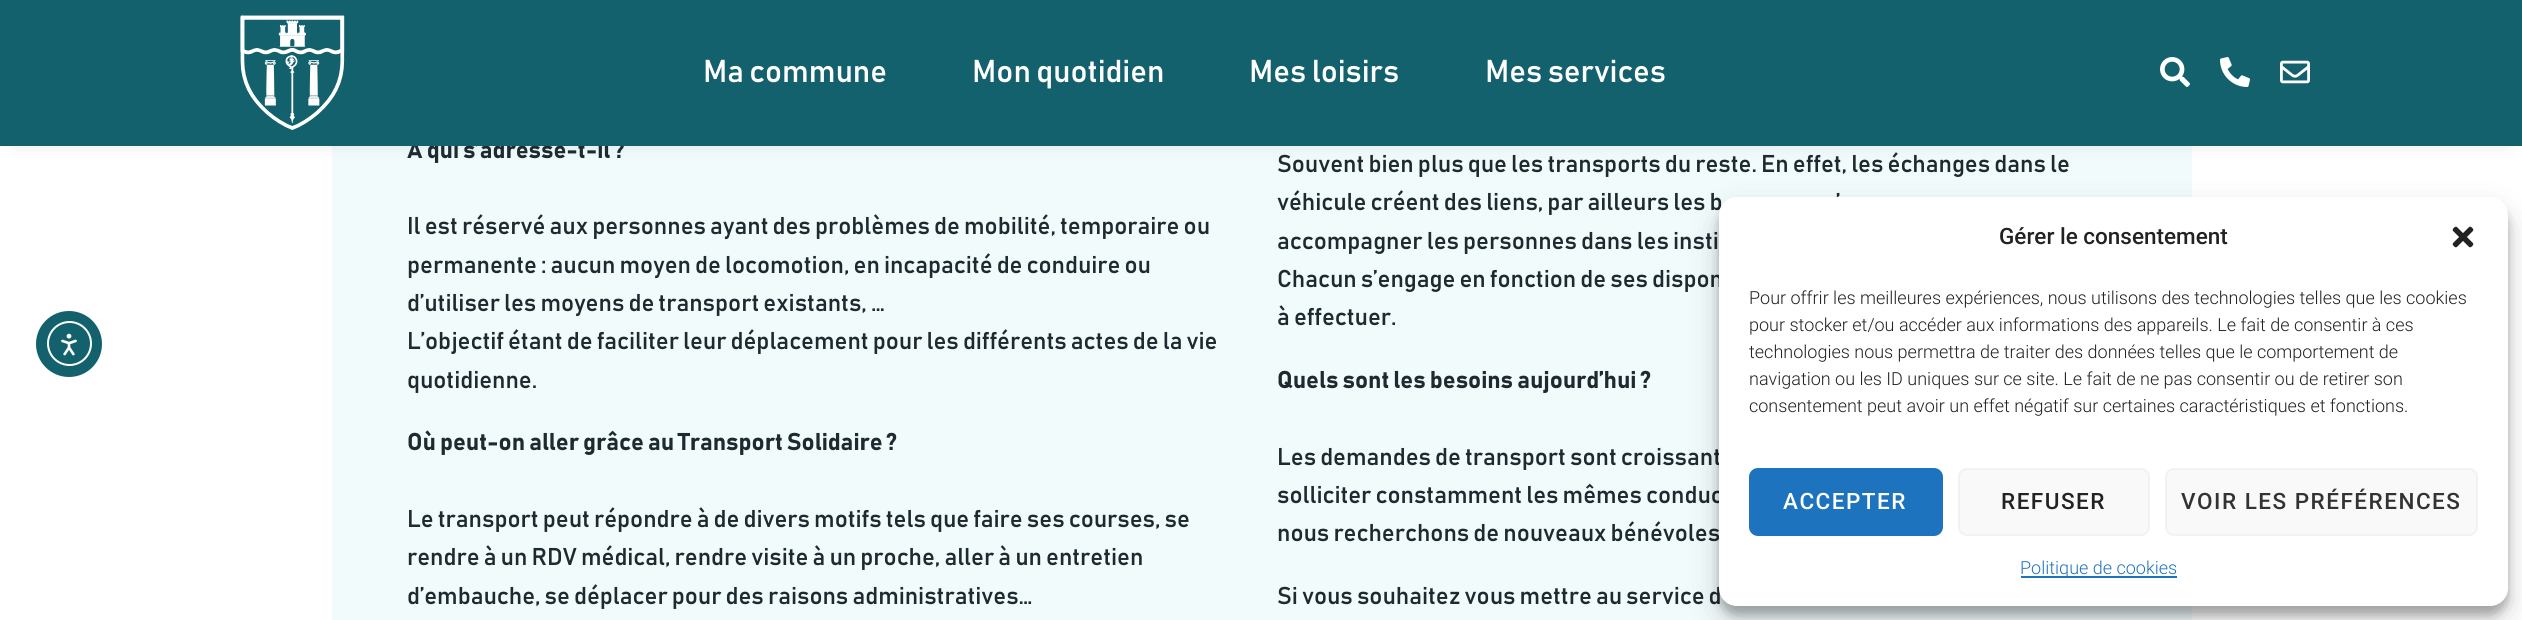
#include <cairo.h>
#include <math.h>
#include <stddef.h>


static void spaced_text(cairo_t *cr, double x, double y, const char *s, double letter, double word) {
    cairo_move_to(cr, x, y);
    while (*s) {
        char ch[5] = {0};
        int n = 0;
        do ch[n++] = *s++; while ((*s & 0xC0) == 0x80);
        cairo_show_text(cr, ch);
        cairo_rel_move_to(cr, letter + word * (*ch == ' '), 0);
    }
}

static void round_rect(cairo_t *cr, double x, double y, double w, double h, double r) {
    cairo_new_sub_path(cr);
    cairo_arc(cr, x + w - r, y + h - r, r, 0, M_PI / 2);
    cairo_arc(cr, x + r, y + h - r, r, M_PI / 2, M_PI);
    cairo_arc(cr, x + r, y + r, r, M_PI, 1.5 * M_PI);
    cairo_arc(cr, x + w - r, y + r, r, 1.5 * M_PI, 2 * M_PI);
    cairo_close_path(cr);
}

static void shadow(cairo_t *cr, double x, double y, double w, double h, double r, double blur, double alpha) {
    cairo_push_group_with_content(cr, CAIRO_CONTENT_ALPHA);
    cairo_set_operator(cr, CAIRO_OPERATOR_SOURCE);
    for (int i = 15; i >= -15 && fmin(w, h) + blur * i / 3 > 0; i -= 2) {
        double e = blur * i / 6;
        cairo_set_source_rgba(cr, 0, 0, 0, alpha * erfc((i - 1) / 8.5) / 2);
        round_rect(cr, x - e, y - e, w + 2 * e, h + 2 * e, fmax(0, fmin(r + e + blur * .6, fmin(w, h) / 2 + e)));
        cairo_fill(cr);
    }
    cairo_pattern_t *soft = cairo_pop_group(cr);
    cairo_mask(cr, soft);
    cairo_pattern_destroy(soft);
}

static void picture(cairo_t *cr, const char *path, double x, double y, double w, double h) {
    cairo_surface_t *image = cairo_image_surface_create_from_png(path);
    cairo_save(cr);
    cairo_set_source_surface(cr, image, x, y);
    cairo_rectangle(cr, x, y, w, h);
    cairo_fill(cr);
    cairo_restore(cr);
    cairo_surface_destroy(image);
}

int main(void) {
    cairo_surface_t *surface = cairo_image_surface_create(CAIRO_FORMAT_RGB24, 2522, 620);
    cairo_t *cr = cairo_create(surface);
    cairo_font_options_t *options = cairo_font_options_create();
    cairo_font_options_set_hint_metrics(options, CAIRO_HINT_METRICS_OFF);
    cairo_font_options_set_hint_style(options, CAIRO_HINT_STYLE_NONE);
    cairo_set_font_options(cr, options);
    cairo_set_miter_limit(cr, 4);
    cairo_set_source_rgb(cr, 1, 1, 1);
    cairo_paint(cr);
    cairo_set_source_rgb(cr, 0.078, 0.38, 0.424);
    cairo_arc(cr, 69, 344, 33, 0, 2 * M_PI);
    cairo_fill(cr);
    cairo_arc(cr, 69.5, 343.5, 21.5, 0, 2 * M_PI);
    cairo_set_source_rgb(cr, 1, 1, 1);
    cairo_stroke(cr);
    picture(cr, "img1.png", 61, 333, 16, 23);
    cairo_set_source_rgb(cr, 0.949, 0.984, 0.988);
    cairo_rectangle(cr, 332, 146, 1860, 474);
    cairo_fill(cr);
    cairo_set_source_rgb(cr, 0.129, 0.137, 0.149);
    shadow(cr, 15, 30, 2493, 116, 0, 7.5, 0.1);
    cairo_select_font_face(cr, "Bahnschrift", CAIRO_FONT_SLANT_NORMAL, CAIRO_FONT_WEIGHT_BOLD);
    cairo_set_font_size(cr, 24);
    cairo_set_source_rgb(cr, 0.114, 0.165, 0.184);
    cairo_move_to(cr, 407, 158);
    cairo_show_text(cr, "À qui s’adresse-t-il ?");
    cairo_set_source_rgb(cr, 0.078, 0.38, 0.427);
    cairo_rectangle(cr, 0, 0, 2522, 146);
    cairo_fill(cr);
    picture(cr, "img2.png", 240, 15, 105, 115);
    cairo_select_font_face(cr, "Bahnschrift Medium", CAIRO_FONT_SLANT_NORMAL, CAIRO_FONT_WEIGHT_NORMAL);
    cairo_set_font_size(cr, 31.25);
    cairo_set_source_rgb(cr, 1, 1, 1);
    cairo_move_to(cr, 703, 82);
    cairo_show_text(cr, "Ma commune");
    cairo_move_to(cr, 972, 82);
    cairo_show_text(cr, "Mon quotidien");
    cairo_move_to(cr, 1249, 82);
    cairo_show_text(cr, "Mes loisirs");
    cairo_move_to(cr, 1485, 82);
    cairo_show_text(cr, "Mes services");
    picture(cr, "img3.png", 2160, 57, 30, 30);
    picture(cr, "img4.png", 2220, 57, 30, 30);
    picture(cr, "img5.png", 2280, 60, 30, 24);
    cairo_set_font_size(cr, 24);
    cairo_set_source_rgb(cr, 0.114, 0.165, 0.184);
    cairo_move_to(cr, 407, 234);
    cairo_show_text(cr, "Il est réservé aux personnes ayant des problèmes de mobilité, temporaire ou");
    cairo_move_to(cr, 407, 273);
    cairo_show_text(cr, "permanente : aucun moyen de locomotion, en incapacité de conduire ou");
    cairo_move_to(cr, 407, 311);
    cairo_show_text(cr, "d’utiliser les moyens de transport existants, …");
    cairo_move_to(cr, 407, 349);
    cairo_show_text(cr, "L’objectif étant de faciliter leur déplacement pour les différents actes de la vie");
    cairo_move_to(cr, 407, 388);
    cairo_show_text(cr, "quotidienne.");
    cairo_select_font_face(cr, "Bahnschrift", CAIRO_FONT_SLANT_NORMAL, CAIRO_FONT_WEIGHT_BOLD);
    cairo_move_to(cr, 407, 450);
    cairo_show_text(cr, "Où peut-on aller grâce au Transport Solidaire ?");
    cairo_select_font_face(cr, "Bahnschrift Medium", CAIRO_FONT_SLANT_NORMAL, CAIRO_FONT_WEIGHT_NORMAL);
    cairo_move_to(cr, 407, 527);
    cairo_show_text(cr, "Le transport peut répondre à de divers motifs tels que faire ses courses, se");
    cairo_move_to(cr, 407, 565);
    cairo_show_text(cr, "rendre à un RDV médical, rendre visite à un proche, aller à un entretien");
    cairo_move_to(cr, 407, 604);
    cairo_show_text(cr, "d’embauche, se déplacer pour des raisons administratives…");
    cairo_move_to(cr, 1277, 172);
    cairo_show_text(cr, "Souvent bien plus que les transports du reste. En effet, les échanges dans le");
    cairo_move_to(cr, 1277, 210);
    cairo_show_text(cr, "véhicule créent des liens, par ailleurs les b");
    cairo_move_to(cr, 1836, 210);
    cairo_show_text(cr, "’");
    cairo_move_to(cr, 1277, 249);
    cairo_show_text(cr, "accompagner les personnes dans les insti");
    cairo_move_to(cr, 1277, 287);
    cairo_show_text(cr, "Chacun s’engage en fonction de ses dispon");
    cairo_move_to(cr, 1277, 325);
    cairo_show_text(cr, "à effectuer.");
    cairo_select_font_face(cr, "Bahnschrift", CAIRO_FONT_SLANT_NORMAL, CAIRO_FONT_WEIGHT_BOLD);
    cairo_move_to(cr, 1277, 388);
    cairo_show_text(cr, "Quels sont les besoins aujourd’hui ?");
    cairo_select_font_face(cr, "Bahnschrift Medium", CAIRO_FONT_SLANT_NORMAL, CAIRO_FONT_WEIGHT_NORMAL);
    cairo_move_to(cr, 1277, 465);
    cairo_show_text(cr, "Les demandes de transport sont croissant");
    cairo_move_to(cr, 1277, 503);
    cairo_show_text(cr, "solliciter constamment les mêmes conduc");
    cairo_move_to(cr, 1277, 541);
    cairo_show_text(cr, "nous recherchons de nouveaux bénévoles");
    cairo_move_to(cr, 1277, 604);
    cairo_show_text(cr, "Si vous souhaitez vous mettre au service d");
    cairo_set_source_rgb(cr, 0, 0, 0);
    shadow(cr, 1719, 206, 789, 409, 18, 4.5, 0.23);
    shadow(cr, 1719, 212, 789, 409, 18, 15, 0.19);
    cairo_set_source_rgb(cr, 1, 1, 1);
    round_rect(cr, 1719, 197, 789, 409, 18);
    cairo_fill(cr);
    cairo_select_font_face(cr, "Roboto Medium", CAIRO_FONT_SLANT_NORMAL, CAIRO_FONT_WEIGHT_NORMAL);
    cairo_set_font_size(cr, 22.5);
    cairo_set_source_rgb(cr, 0.133, 0.133, 0.133);
    cairo_move_to(cr, 1999, 244);
    cairo_show_text(cr, "Gérer le consentement");
    picture(cr, "img6.png", 2452, 226, 22, 22);
    cairo_select_font_face(cr, "Roboto Light", CAIRO_FONT_SLANT_NORMAL, CAIRO_FONT_WEIGHT_NORMAL);
    cairo_set_font_size(cr, 18);
    cairo_move_to(cr, 1749, 304);
    cairo_show_text(cr, "Pour offrir les meilleures expériences, nous utilisons des technologies telles que les cookies");
    cairo_move_to(cr, 1749, 331);
    cairo_show_text(cr, "pour stocker et/ou accéder aux informations des appareils. Le fait de consentir à ces");
    cairo_move_to(cr, 1749, 358);
    cairo_show_text(cr, "technologies nous permettra de traiter des données telles que le comportement de");
    cairo_move_to(cr, 1749, 385);
    cairo_show_text(cr, "navigation ou les ID uniques sur ce site. Le fait de ne pas consentir ou de retirer son");
    cairo_move_to(cr, 1749, 412);
    cairo_show_text(cr, "consentement peut avoir un effet négatif sur certaines caractéristiques et fonctions.");
    cairo_set_source_rgb(cr, 0.118, 0.451, 0.745);
    round_rect(cr, 1750, 469, 192, 66, 8);
    cairo_fill_preserve(cr);
    cairo_stroke(cr);
    cairo_select_font_face(cr, "Roboto Medium", CAIRO_FONT_SLANT_NORMAL, CAIRO_FONT_WEIGHT_NORMAL);
    cairo_set_font_size(cr, 22.5);
    cairo_set_source_rgb(cr, 1, 1, 1);
    spaced_text(cr, 1783, 509, "ACCEPTER", 1.5, 0);
    cairo_set_source_rgb(cr, 0.976, 0.976, 0.976);
    round_rect(cr, 1959, 469, 190, 66, 8);
    cairo_fill_preserve(cr);
    cairo_set_source_rgb(cr, 0.949, 0.949, 0.949);
    cairo_stroke(cr);
    cairo_set_source_rgb(cr, 0.133, 0.133, 0.133);
    spaced_text(cr, 2001, 509, "REFUSER", 1.5, 0);
    cairo_set_source_rgb(cr, 0.976, 0.976, 0.976);
    round_rect(cr, 2166, 469, 311, 66, 8);
    cairo_fill_preserve(cr);
    cairo_set_source_rgb(cr, 0.949, 0.949, 0.949);
    cairo_stroke(cr);
    cairo_set_source_rgb(cr, 0.2, 0.2, 0.2);
    spaced_text(cr, 2181, 509, "VOIR LES PRÉFÉRENCES", 1.5, 0);
    cairo_set_source_rgb(cr, 0.118, 0.451, 0.745);
    cairo_rectangle(cr, 2021, 576, 156, 2);
    cairo_fill(cr);
    cairo_select_font_face(cr, "Roboto Light", CAIRO_FONT_SLANT_NORMAL, CAIRO_FONT_WEIGHT_NORMAL);
    cairo_set_font_size(cr, 18);
    cairo_move_to(cr, 2020, 574);
    cairo_show_text(cr, "Politique de cookies");
    cairo_surface_write_to_png(surface, "page.png");
    cairo_font_options_destroy(options);
    cairo_destroy(cr);
    cairo_surface_destroy(surface);
    return 0;
}
